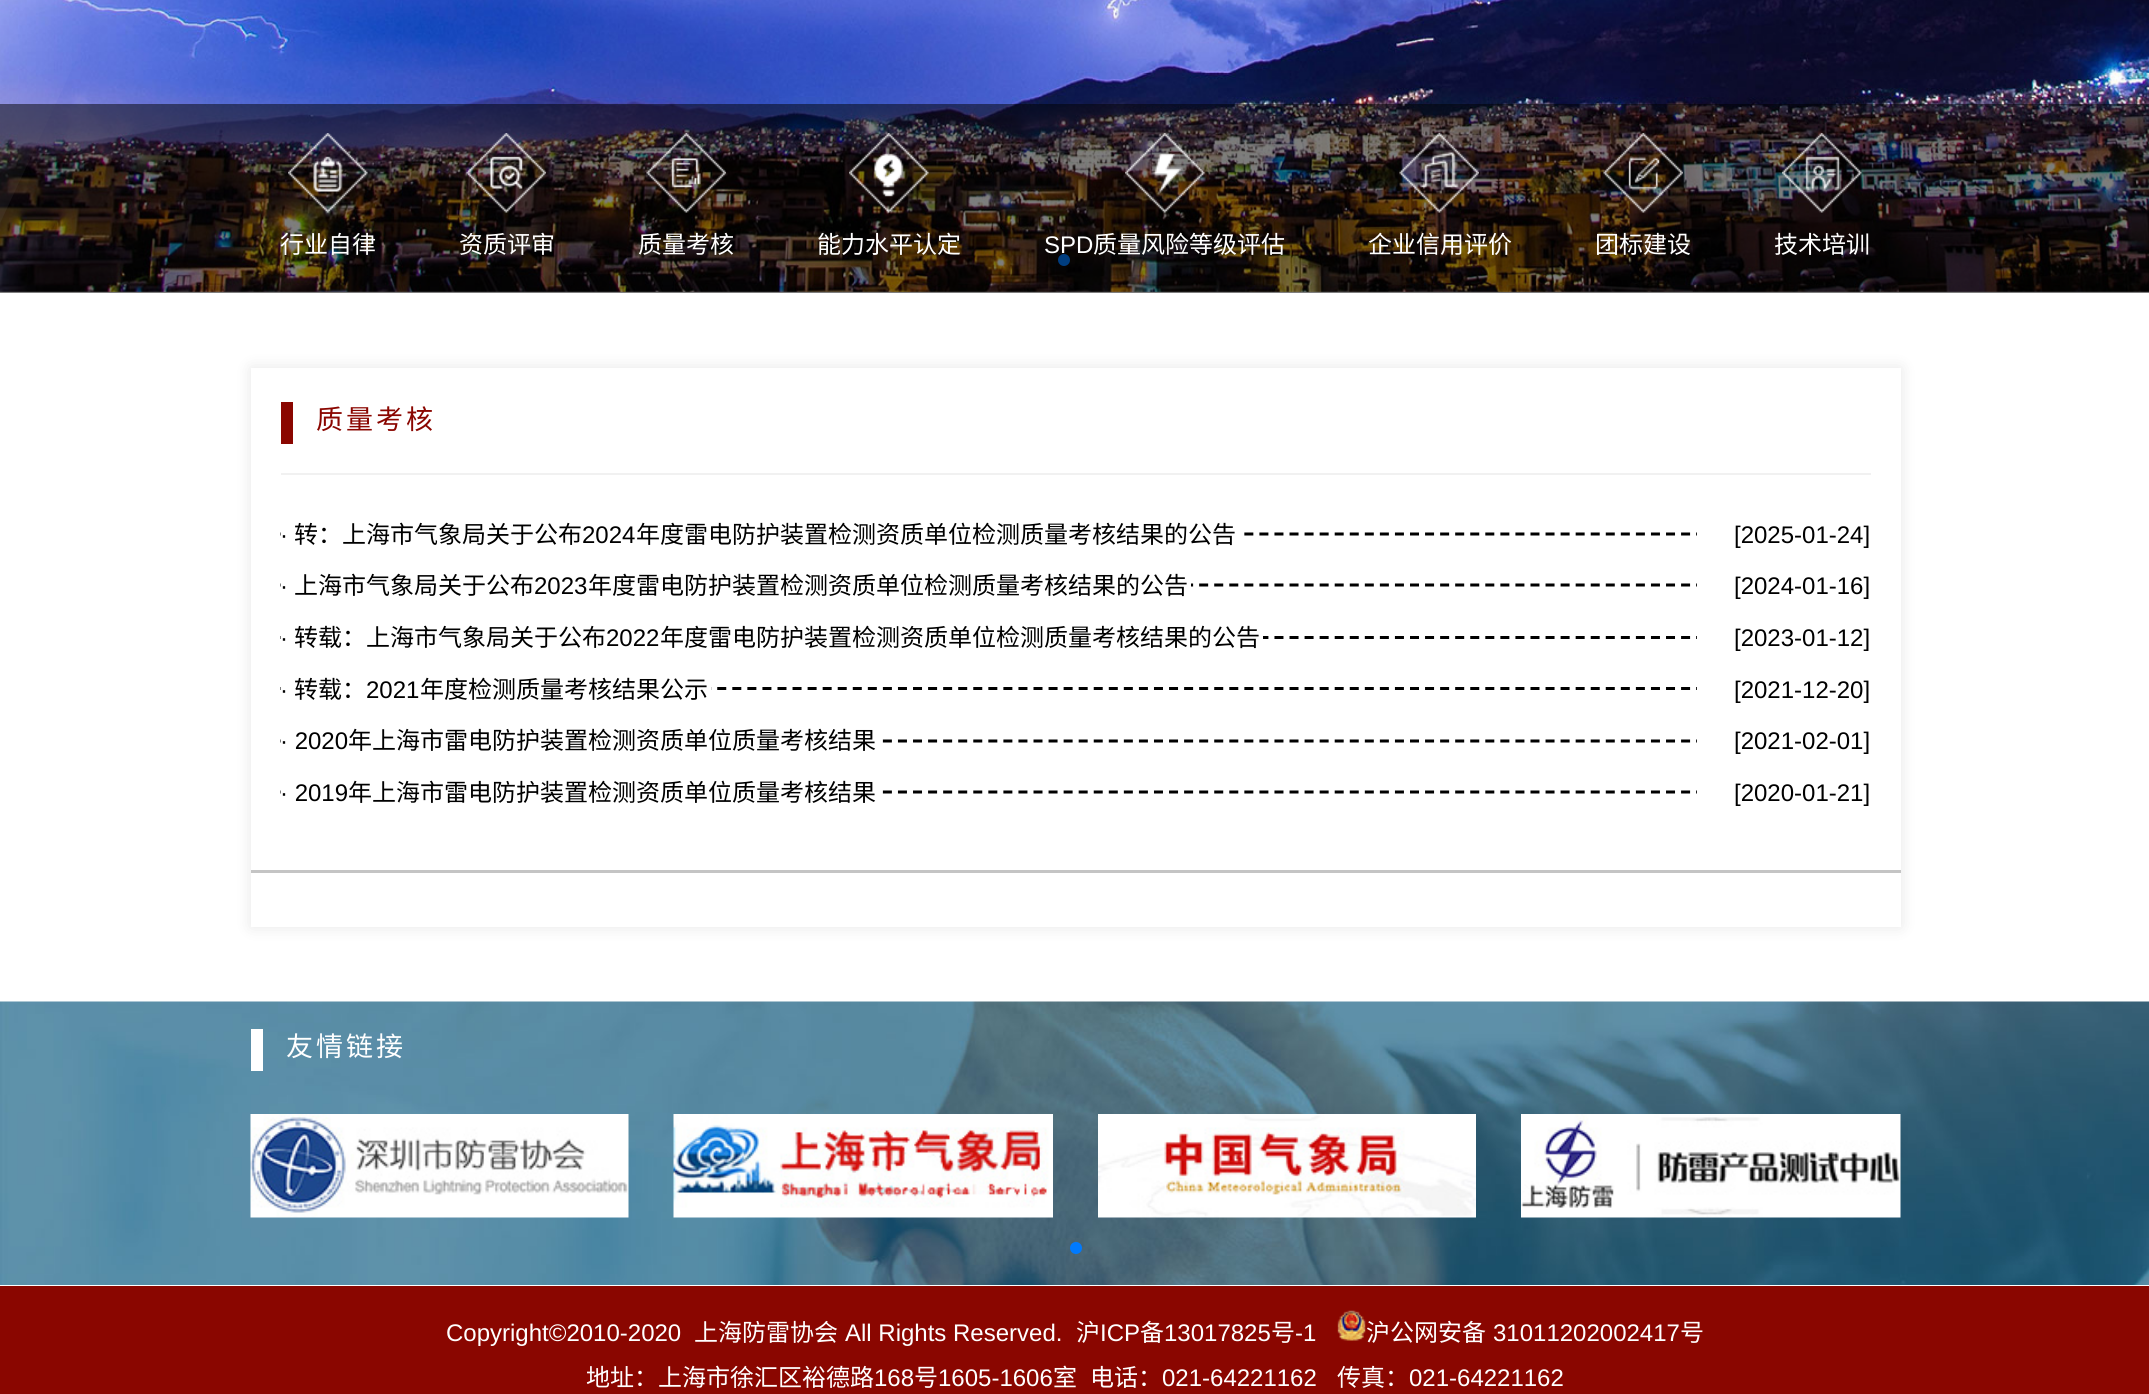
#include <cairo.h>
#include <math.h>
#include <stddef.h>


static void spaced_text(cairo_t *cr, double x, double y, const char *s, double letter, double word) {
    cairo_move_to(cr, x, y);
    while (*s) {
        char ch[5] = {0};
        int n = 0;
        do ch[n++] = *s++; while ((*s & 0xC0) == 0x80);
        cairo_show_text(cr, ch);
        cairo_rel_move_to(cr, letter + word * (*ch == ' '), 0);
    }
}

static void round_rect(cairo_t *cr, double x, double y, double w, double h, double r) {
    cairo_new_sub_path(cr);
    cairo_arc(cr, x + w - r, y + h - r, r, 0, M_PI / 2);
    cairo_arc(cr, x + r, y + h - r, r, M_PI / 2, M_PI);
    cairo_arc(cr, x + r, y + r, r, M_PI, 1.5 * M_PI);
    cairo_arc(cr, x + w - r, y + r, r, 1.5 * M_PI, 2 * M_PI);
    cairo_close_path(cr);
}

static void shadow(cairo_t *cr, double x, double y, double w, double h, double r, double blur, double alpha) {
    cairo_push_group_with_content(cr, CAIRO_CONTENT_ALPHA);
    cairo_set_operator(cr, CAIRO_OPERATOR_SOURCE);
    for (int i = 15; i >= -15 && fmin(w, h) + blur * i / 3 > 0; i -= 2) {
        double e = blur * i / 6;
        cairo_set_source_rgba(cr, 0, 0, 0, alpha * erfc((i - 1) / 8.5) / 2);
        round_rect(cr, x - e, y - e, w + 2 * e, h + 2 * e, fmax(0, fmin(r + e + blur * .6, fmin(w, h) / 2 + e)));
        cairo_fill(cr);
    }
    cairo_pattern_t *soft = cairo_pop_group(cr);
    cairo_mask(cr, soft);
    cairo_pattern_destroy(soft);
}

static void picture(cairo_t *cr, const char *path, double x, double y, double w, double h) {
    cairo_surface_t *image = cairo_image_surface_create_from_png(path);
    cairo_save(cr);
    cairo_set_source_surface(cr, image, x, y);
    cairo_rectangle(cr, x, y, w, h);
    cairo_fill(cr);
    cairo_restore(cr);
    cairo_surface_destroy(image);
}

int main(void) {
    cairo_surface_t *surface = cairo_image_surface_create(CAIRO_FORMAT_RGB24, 2149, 1394);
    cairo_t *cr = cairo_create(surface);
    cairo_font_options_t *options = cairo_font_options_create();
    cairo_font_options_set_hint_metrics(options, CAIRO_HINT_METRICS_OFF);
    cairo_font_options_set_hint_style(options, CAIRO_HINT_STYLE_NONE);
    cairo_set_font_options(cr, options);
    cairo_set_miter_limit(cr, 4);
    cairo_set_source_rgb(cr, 1, 1, 1);
    cairo_paint(cr);
    picture(cr, "img1.png", 0, 0, 2149, 292);
    cairo_set_source_rgb(cr, 0, 0.478, 1);
    cairo_arc(cr, 1064, 260, 6, 0, 2 * M_PI);
    cairo_fill(cr);
    cairo_set_source_rgba(cr, 0, 0, 0, 0.2);
    cairo_arc(cr, 1088, 260, 6, 0, 2 * M_PI);
    cairo_fill(cr);
    cairo_set_source_rgba(cr, 0, 0, 0, 0.5);
    cairo_rectangle(cr, 0, 104, 2149, 189);
    cairo_fill(cr);
    picture(cr, "img2.png", 288, 133, 80, 80);
    cairo_select_font_face(cr, "Noto Sans CJK SC", CAIRO_FONT_SLANT_NORMAL, CAIRO_FONT_WEIGHT_NORMAL);
    cairo_set_font_size(cr, 24);
    cairo_set_source_rgb(cr, 1, 1, 1);
    cairo_move_to(cr, 280, 253);
    cairo_show_text(cr, "行业自律");
    picture(cr, "img3.png", 466, 133, 80, 80);
    cairo_move_to(cr, 459, 253);
    cairo_show_text(cr, "资质评审");
    picture(cr, "img4.png", 646, 133, 80, 80);
    cairo_move_to(cr, 638, 253);
    cairo_show_text(cr, "质量考核");
    picture(cr, "img5.png", 849, 133, 80, 80);
    cairo_move_to(cr, 817, 253);
    cairo_show_text(cr, "能力水平认定");
    picture(cr, "img6.png", 1125, 133, 80, 80);
    cairo_select_font_face(cr, "Liberation Sans", CAIRO_FONT_SLANT_NORMAL, CAIRO_FONT_WEIGHT_NORMAL);
    cairo_move_to(cr, 1044, 253);
    cairo_show_text(cr, "SPD");
    cairo_select_font_face(cr, "Noto Sans CJK SC", CAIRO_FONT_SLANT_NORMAL, CAIRO_FONT_WEIGHT_NORMAL);
    cairo_move_to(cr, 1093, 253);
    cairo_show_text(cr, "质量风险等级评估");
    picture(cr, "img7.png", 1399, 133, 80, 80);
    cairo_move_to(cr, 1368, 253);
    cairo_show_text(cr, "企业信用评价");
    picture(cr, "img8.png", 1603, 133, 80, 80);
    cairo_move_to(cr, 1595, 253);
    cairo_show_text(cr, "团标建设");
    picture(cr, "img9.png", 1782, 133, 80, 80);
    cairo_move_to(cr, 1774, 253);
    cairo_show_text(cr, "技术培训");
    cairo_save(cr);
    cairo_set_fill_rule(cr, CAIRO_FILL_RULE_EVEN_ODD);
    cairo_new_path(cr);
    cairo_move_to(cr, 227, 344);
    cairo_line_to(cr, 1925, 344);
    cairo_line_to(cr, 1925, 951);
    cairo_line_to(cr, 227, 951);
    cairo_close_path(cr);
    cairo_move_to(cr, 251, 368);
    cairo_line_to(cr, 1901, 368);
    cairo_line_to(cr, 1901, 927);
    cairo_line_to(cr, 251, 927);
    cairo_close_path(cr);
    cairo_clip(cr);
    cairo_set_source_rgb(cr, 0, 0, 0);
    shadow(cr, 251, 368, 1650, 559, 0, 7.5, 0.1);
    cairo_restore(cr);
    cairo_set_source_rgb(cr, 0.945, 0.945, 0.945);
    cairo_rectangle(cr, 281, 473, 1590, 2);
    cairo_fill(cr);
    cairo_set_source_rgb(cr, 0.541, 0.024, 0);
    cairo_rectangle(cr, 281, 402, 12, 42);
    cairo_fill(cr);
    cairo_set_font_size(cr, 27);
    spaced_text(cr, 316, 429, "质量考核", 3, 0);
    cairo_new_path(cr);
    cairo_move_to(cr, 280.5, 534);
    cairo_line_to(cr, 1870.5, 534);
    cairo_set_source_rgb(cr, 0, 0, 0);
    cairo_set_line_width(cr, 3);
    cairo_set_dash(cr, (double[]){9, 6.06}, 2, 0);
    cairo_stroke(cr);
    cairo_set_source_rgb(cr, 1, 1, 1);
    cairo_rectangle(cr, 281, 532, 958, 4);
    cairo_fill(cr);
    cairo_select_font_face(cr, "Liberation Sans", CAIRO_FONT_SLANT_NORMAL, CAIRO_FONT_WEIGHT_NORMAL);
    cairo_set_font_size(cr, 24);
    cairo_set_source_rgb(cr, 0, 0, 0);
    cairo_move_to(cr, 280, 543);
    cairo_show_text(cr, "·");
    cairo_select_font_face(cr, "Noto Sans CJK SC", CAIRO_FONT_SLANT_NORMAL, CAIRO_FONT_WEIGHT_NORMAL);
    cairo_move_to(cr, 294, 543);
    cairo_show_text(cr, "转：上海市气象局关于公布");
    cairo_select_font_face(cr, "Liberation Sans", CAIRO_FONT_SLANT_NORMAL, CAIRO_FONT_WEIGHT_NORMAL);
    cairo_move_to(cr, 582, 543);
    cairo_show_text(cr, "2024");
    cairo_select_font_face(cr, "Noto Sans CJK SC", CAIRO_FONT_SLANT_NORMAL, CAIRO_FONT_WEIGHT_NORMAL);
    cairo_move_to(cr, 636, 543);
    cairo_show_text(cr, "年度雷电防护装置检测资质单位检测质量考核结果的公告");
    cairo_set_source_rgb(cr, 1, 1, 1);
    cairo_rectangle(cr, 1697, 532, 174, 4);
    cairo_fill(cr);
    cairo_select_font_face(cr, "Liberation Sans", CAIRO_FONT_SLANT_NORMAL, CAIRO_FONT_WEIGHT_NORMAL);
    cairo_set_source_rgb(cr, 0, 0, 0);
    cairo_move_to(cr, 1734, 543);
    cairo_show_text(cr, "[2025-01-24]");
    cairo_new_path(cr);
    cairo_move_to(cr, 280.5, 585);
    cairo_line_to(cr, 1870.5, 585);
    cairo_stroke(cr);
    cairo_set_source_rgb(cr, 1, 1, 1);
    cairo_rectangle(cr, 281, 583, 910, 4);
    cairo_fill(cr);
    cairo_set_source_rgb(cr, 0, 0, 0);
    cairo_move_to(cr, 280, 594);
    cairo_show_text(cr, "·");
    cairo_select_font_face(cr, "Noto Sans CJK SC", CAIRO_FONT_SLANT_NORMAL, CAIRO_FONT_WEIGHT_NORMAL);
    cairo_move_to(cr, 294, 594);
    cairo_show_text(cr, "上海市气象局关于公布");
    cairo_select_font_face(cr, "Liberation Sans", CAIRO_FONT_SLANT_NORMAL, CAIRO_FONT_WEIGHT_NORMAL);
    cairo_move_to(cr, 534, 594);
    cairo_show_text(cr, "2023");
    cairo_select_font_face(cr, "Noto Sans CJK SC", CAIRO_FONT_SLANT_NORMAL, CAIRO_FONT_WEIGHT_NORMAL);
    cairo_move_to(cr, 588, 594);
    cairo_show_text(cr, "年度雷电防护装置检测资质单位检测质量考核结果的公告");
    cairo_set_source_rgb(cr, 1, 1, 1);
    cairo_rectangle(cr, 1697, 583, 174, 4);
    cairo_fill(cr);
    cairo_select_font_face(cr, "Liberation Sans", CAIRO_FONT_SLANT_NORMAL, CAIRO_FONT_WEIGHT_NORMAL);
    cairo_set_source_rgb(cr, 0, 0, 0);
    cairo_move_to(cr, 1734, 594);
    cairo_show_text(cr, "[2024-01-16]");
    cairo_new_path(cr);
    cairo_move_to(cr, 280.5, 637.5);
    cairo_line_to(cr, 1870.5, 637.5);
    cairo_stroke(cr);
    cairo_set_source_rgb(cr, 1, 1, 1);
    cairo_rectangle(cr, 281, 636, 982, 3);
    cairo_fill(cr);
    cairo_set_source_rgb(cr, 0, 0, 0);
    cairo_move_to(cr, 280, 646);
    cairo_show_text(cr, "·");
    cairo_select_font_face(cr, "Noto Sans CJK SC", CAIRO_FONT_SLANT_NORMAL, CAIRO_FONT_WEIGHT_NORMAL);
    cairo_move_to(cr, 294, 646);
    cairo_show_text(cr, "转载：上海市气象局关于公布");
    cairo_select_font_face(cr, "Liberation Sans", CAIRO_FONT_SLANT_NORMAL, CAIRO_FONT_WEIGHT_NORMAL);
    cairo_move_to(cr, 606, 646);
    cairo_show_text(cr, "2022");
    cairo_select_font_face(cr, "Noto Sans CJK SC", CAIRO_FONT_SLANT_NORMAL, CAIRO_FONT_WEIGHT_NORMAL);
    cairo_move_to(cr, 660, 646);
    cairo_show_text(cr, "年度雷电防护装置检测资质单位检测质量考核结果的公告");
    cairo_set_source_rgb(cr, 1, 1, 1);
    cairo_rectangle(cr, 1697, 636, 174, 3);
    cairo_fill(cr);
    cairo_select_font_face(cr, "Liberation Sans", CAIRO_FONT_SLANT_NORMAL, CAIRO_FONT_WEIGHT_NORMAL);
    cairo_set_source_rgb(cr, 0, 0, 0);
    cairo_move_to(cr, 1734, 646);
    cairo_show_text(cr, "[2023-01-12]");
    cairo_new_path(cr);
    cairo_move_to(cr, 280.5, 688.5);
    cairo_line_to(cr, 1870.5, 688.5);
    cairo_stroke(cr);
    cairo_set_source_rgb(cr, 1, 1, 1);
    cairo_rectangle(cr, 281, 687, 430, 3);
    cairo_fill(cr);
    cairo_set_source_rgb(cr, 0, 0, 0);
    cairo_move_to(cr, 280, 698);
    cairo_show_text(cr, "·");
    cairo_select_font_face(cr, "Noto Sans CJK SC", CAIRO_FONT_SLANT_NORMAL, CAIRO_FONT_WEIGHT_NORMAL);
    cairo_move_to(cr, 294, 698);
    cairo_show_text(cr, "转载：");
    cairo_select_font_face(cr, "Liberation Sans", CAIRO_FONT_SLANT_NORMAL, CAIRO_FONT_WEIGHT_NORMAL);
    cairo_move_to(cr, 366, 698);
    cairo_show_text(cr, "2021");
    cairo_select_font_face(cr, "Noto Sans CJK SC", CAIRO_FONT_SLANT_NORMAL, CAIRO_FONT_WEIGHT_NORMAL);
    cairo_move_to(cr, 420, 698);
    cairo_show_text(cr, "年度检测质量考核结果公示");
    cairo_set_source_rgb(cr, 1, 1, 1);
    cairo_rectangle(cr, 1697, 687, 174, 3);
    cairo_fill(cr);
    cairo_select_font_face(cr, "Liberation Sans", CAIRO_FONT_SLANT_NORMAL, CAIRO_FONT_WEIGHT_NORMAL);
    cairo_set_source_rgb(cr, 0, 0, 0);
    cairo_move_to(cr, 1734, 698);
    cairo_show_text(cr, "[2021-12-20]");
    cairo_new_path(cr);
    cairo_move_to(cr, 280.5, 741);
    cairo_line_to(cr, 1870.5, 741);
    cairo_stroke(cr);
    cairo_set_source_rgb(cr, 1, 1, 1);
    cairo_rectangle(cr, 281, 739, 596, 4);
    cairo_fill(cr);
    cairo_set_source_rgb(cr, 0, 0, 0);
    cairo_move_to(cr, 280, 749);
    cairo_show_text(cr, "· 2020");
    cairo_select_font_face(cr, "Noto Sans CJK SC", CAIRO_FONT_SLANT_NORMAL, CAIRO_FONT_WEIGHT_NORMAL);
    cairo_move_to(cr, 348, 749);
    cairo_show_text(cr, "年上海市雷电防护装置检测资质单位质量考核结果");
    cairo_set_source_rgb(cr, 1, 1, 1);
    cairo_rectangle(cr, 1697, 739, 174, 4);
    cairo_fill(cr);
    cairo_select_font_face(cr, "Liberation Sans", CAIRO_FONT_SLANT_NORMAL, CAIRO_FONT_WEIGHT_NORMAL);
    cairo_set_source_rgb(cr, 0, 0, 0);
    cairo_move_to(cr, 1734, 749);
    cairo_show_text(cr, "[2021-02-01]");
    cairo_new_path(cr);
    cairo_move_to(cr, 280.5, 792);
    cairo_line_to(cr, 1870.5, 792);
    cairo_stroke(cr);
    cairo_set_source_rgb(cr, 1, 1, 1);
    cairo_rectangle(cr, 281, 790, 596, 4);
    cairo_fill(cr);
    cairo_set_source_rgb(cr, 0, 0, 0);
    cairo_move_to(cr, 280, 801);
    cairo_show_text(cr, "· 2019");
    cairo_select_font_face(cr, "Noto Sans CJK SC", CAIRO_FONT_SLANT_NORMAL, CAIRO_FONT_WEIGHT_NORMAL);
    cairo_move_to(cr, 348, 801);
    cairo_show_text(cr, "年上海市雷电防护装置检测资质单位质量考核结果");
    cairo_set_source_rgb(cr, 1, 1, 1);
    cairo_rectangle(cr, 1697, 790, 174, 4);
    cairo_fill(cr);
    cairo_select_font_face(cr, "Liberation Sans", CAIRO_FONT_SLANT_NORMAL, CAIRO_FONT_WEIGHT_NORMAL);
    cairo_set_source_rgb(cr, 0, 0, 0);
    cairo_move_to(cr, 1734, 801);
    cairo_show_text(cr, "[2020-01-21]");
    cairo_set_source_rgb(cr, 0.769, 0.769, 0.769);
    cairo_rectangle(cr, 251, 870, 1650, 3);
    cairo_fill(cr);
    picture(cr, "img10.png", 0, 1001, 2149, 284);
    cairo_set_source_rgb(cr, 1, 1, 1);
    cairo_rectangle(cr, 251, 1029, 12, 42);
    cairo_fill(cr);
    cairo_select_font_face(cr, "Noto Sans CJK SC", CAIRO_FONT_SLANT_NORMAL, CAIRO_FONT_WEIGHT_NORMAL);
    cairo_set_font_size(cr, 27);
    spaced_text(cr, 286, 1056, "友情链接", 3, 0);
    picture(cr, "img11.png", 250, 1114, 379, 104);
    picture(cr, "img12.png", 673, 1114, 380, 104);
    picture(cr, "img13.png", 1098, 1114, 378, 104);
    picture(cr, "img14.png", 1521, 1114, 380, 104);
    cairo_set_source_rgb(cr, 0, 0.478, 1);
    cairo_arc(cr, 1076, 1248, 6, 0, 2 * M_PI);
    cairo_fill(cr);
    cairo_set_source_rgb(cr, 0.541, 0.024, 0);
    cairo_rectangle(cr, 0, 1286, 2149, 108);
    cairo_fill(cr);
    cairo_select_font_face(cr, "Liberation Sans", CAIRO_FONT_SLANT_NORMAL, CAIRO_FONT_WEIGHT_NORMAL);
    cairo_set_font_size(cr, 24);
    cairo_set_source_rgb(cr, 1, 1, 1);
    cairo_move_to(cr, 446, 1341);
    cairo_show_text(cr, "Copyright©2010-2020");
    cairo_select_font_face(cr, "Noto Sans CJK SC", CAIRO_FONT_SLANT_NORMAL, CAIRO_FONT_WEIGHT_NORMAL);
    cairo_move_to(cr, 694, 1341);
    cairo_show_text(cr, "上海防雷协会");
    cairo_select_font_face(cr, "Liberation Sans", CAIRO_FONT_SLANT_NORMAL, CAIRO_FONT_WEIGHT_NORMAL);
    cairo_move_to(cr, 845, 1341);
    cairo_show_text(cr, "All Rights Reserved.");
    cairo_select_font_face(cr, "Noto Sans CJK SC", CAIRO_FONT_SLANT_NORMAL, CAIRO_FONT_WEIGHT_NORMAL);
    cairo_move_to(cr, 1076, 1341);
    cairo_show_text(cr, "沪");
    cairo_select_font_face(cr, "Liberation Sans", CAIRO_FONT_SLANT_NORMAL, CAIRO_FONT_WEIGHT_NORMAL);
    cairo_move_to(cr, 1100, 1341);
    cairo_show_text(cr, "ICP");
    cairo_select_font_face(cr, "Noto Sans CJK SC", CAIRO_FONT_SLANT_NORMAL, CAIRO_FONT_WEIGHT_NORMAL);
    cairo_move_to(cr, 1140, 1341);
    cairo_show_text(cr, "备");
    cairo_select_font_face(cr, "Liberation Sans", CAIRO_FONT_SLANT_NORMAL, CAIRO_FONT_WEIGHT_NORMAL);
    cairo_move_to(cr, 1164, 1341);
    cairo_show_text(cr, "13017825");
    cairo_select_font_face(cr, "Noto Sans CJK SC", CAIRO_FONT_SLANT_NORMAL, CAIRO_FONT_WEIGHT_NORMAL);
    cairo_move_to(cr, 1271, 1341);
    cairo_show_text(cr, "号");
    cairo_select_font_face(cr, "Liberation Sans", CAIRO_FONT_SLANT_NORMAL, CAIRO_FONT_WEIGHT_NORMAL);
    cairo_move_to(cr, 1295, 1341);
    cairo_show_text(cr, "-1");
    picture(cr, "img15.png", 1337, 1310, 29, 31);
    cairo_select_font_face(cr, "Noto Sans CJK SC", CAIRO_FONT_SLANT_NORMAL, CAIRO_FONT_WEIGHT_NORMAL);
    cairo_move_to(cr, 1366, 1341);
    cairo_show_text(cr, "沪公网安备");
    cairo_select_font_face(cr, "Liberation Sans", CAIRO_FONT_SLANT_NORMAL, CAIRO_FONT_WEIGHT_NORMAL);
    cairo_move_to(cr, 1493, 1341);
    cairo_show_text(cr, "31011202002417");
    cairo_select_font_face(cr, "Noto Sans CJK SC", CAIRO_FONT_SLANT_NORMAL, CAIRO_FONT_WEIGHT_NORMAL);
    cairo_move_to(cr, 1680, 1341);
    cairo_show_text(cr, "号");
    cairo_move_to(cr, 586, 1386);
    cairo_show_text(cr, "地址：上海市徐汇区裕德路");
    cairo_select_font_face(cr, "Liberation Sans", CAIRO_FONT_SLANT_NORMAL, CAIRO_FONT_WEIGHT_NORMAL);
    cairo_move_to(cr, 874, 1386);
    cairo_show_text(cr, "168");
    cairo_select_font_face(cr, "Noto Sans CJK SC", CAIRO_FONT_SLANT_NORMAL, CAIRO_FONT_WEIGHT_NORMAL);
    cairo_move_to(cr, 914, 1386);
    cairo_show_text(cr, "号");
    cairo_select_font_face(cr, "Liberation Sans", CAIRO_FONT_SLANT_NORMAL, CAIRO_FONT_WEIGHT_NORMAL);
    cairo_move_to(cr, 938, 1386);
    cairo_show_text(cr, "1605-1606");
    cairo_select_font_face(cr, "Noto Sans CJK SC", CAIRO_FONT_SLANT_NORMAL, CAIRO_FONT_WEIGHT_NORMAL);
    cairo_move_to(cr, 1053, 1386);
    cairo_show_text(cr, "室");
    cairo_move_to(cr, 1090, 1386);
    cairo_show_text(cr, "电话：");
    cairo_select_font_face(cr, "Liberation Sans", CAIRO_FONT_SLANT_NORMAL, CAIRO_FONT_WEIGHT_NORMAL);
    cairo_move_to(cr, 1162, 1386);
    cairo_show_text(cr, "021-64221162");
    cairo_select_font_face(cr, "Noto Sans CJK SC", CAIRO_FONT_SLANT_NORMAL, CAIRO_FONT_WEIGHT_NORMAL);
    cairo_move_to(cr, 1337, 1386);
    cairo_show_text(cr, "传真：");
    cairo_select_font_face(cr, "Liberation Sans", CAIRO_FONT_SLANT_NORMAL, CAIRO_FONT_WEIGHT_NORMAL);
    cairo_move_to(cr, 1409, 1386);
    cairo_show_text(cr, "021-64221162");
    cairo_surface_write_to_png(surface, "page.png");
    cairo_font_options_destroy(options);
    cairo_destroy(cr);
    cairo_surface_destroy(surface);
    return 0;
}
